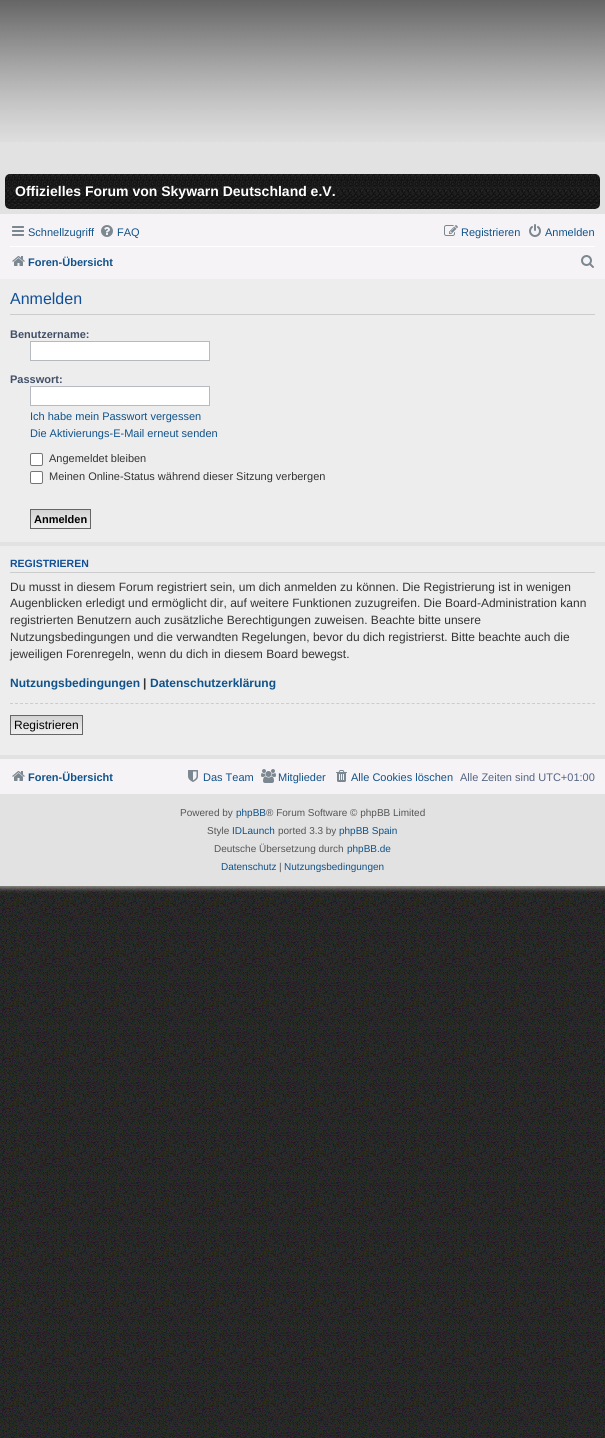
#include <cairo.h>
#include <math.h>
#include <stddef.h>


static void round_rect(cairo_t *cr, double x, double y, double w, double h, double r) {
    cairo_new_sub_path(cr);
    cairo_arc(cr, x + w - r, y + h - r, r, 0, M_PI / 2);
    cairo_arc(cr, x + r, y + h - r, r, M_PI / 2, M_PI);
    cairo_arc(cr, x + r, y + r, r, M_PI, 1.5 * M_PI);
    cairo_arc(cr, x + w - r, y + r, r, 1.5 * M_PI, 2 * M_PI);
    cairo_close_path(cr);
}

static void shadow(cairo_t *cr, double x, double y, double w, double h, double r, double blur, double alpha) {
    cairo_push_group_with_content(cr, CAIRO_CONTENT_ALPHA);
    cairo_set_operator(cr, CAIRO_OPERATOR_SOURCE);
    for (int i = 15; i >= -15 && fmin(w, h) + blur * i / 3 > 0; i -= 2) {
        double e = blur * i / 6;
        cairo_set_source_rgba(cr, 0, 0, 0, alpha * erfc((i - 1) / 8.5) / 2);
        round_rect(cr, x - e, y - e, w + 2 * e, h + 2 * e, fmax(0, fmin(r + e + blur * .6, fmin(w, h) / 2 + e)));
        cairo_fill(cr);
    }
    cairo_pattern_t *soft = cairo_pop_group(cr);
    cairo_mask(cr, soft);
    cairo_pattern_destroy(soft);
}

static void picture(cairo_t *cr, const char *path, double x, double y, double w, double h) {
    cairo_surface_t *image = cairo_image_surface_create_from_png(path);
    cairo_save(cr);
    cairo_set_source_surface(cr, image, x, y);
    cairo_rectangle(cr, x, y, w, h);
    cairo_fill(cr);
    cairo_restore(cr);
    cairo_surface_destroy(image);
}

int main(void) {
    cairo_surface_t *surface = cairo_image_surface_create(CAIRO_FORMAT_RGB24, 605, 1438);
    cairo_t *cr = cairo_create(surface);
    cairo_font_options_t *options = cairo_font_options_create();
    cairo_font_options_set_hint_metrics(options, CAIRO_HINT_METRICS_OFF);
    cairo_font_options_set_hint_style(options, CAIRO_HINT_STYLE_NONE);
    cairo_set_font_options(cr, options);
    cairo_set_miter_limit(cr, 4);
    cairo_pattern_t *gradient;
    cairo_set_source_rgb(cr, 0, 0, 0);
    cairo_paint(cr);
    picture(cr, "img1.png", 0, 886, 605, 552);
    picture(cr, "img2.png", 0, 886, 605, 552);
    cairo_set_source_rgb(cr, 0.616, 0.604, 0.576);
    shadow(cr, -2, -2, 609, 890, 0, 2.5, 1);
    cairo_set_source_rgb(cr, 0.886, 0.886, 0.886);
    cairo_rectangle(cr, 0, 142, 605, 744);
    cairo_fill(cr);
    picture(cr, "img3.png", 0, 0, 605, 142);
    picture(cr, "img4.png", 5, 174, 595, 35);
    cairo_select_font_face(cr, "Liberation Sans", CAIRO_FONT_SLANT_NORMAL, CAIRO_FONT_WEIGHT_BOLD);
    cairo_set_font_size(cr, 14);
    cairo_set_source_rgb(cr, 1, 1, 1);
    cairo_move_to(cr, 15, 196);
    cairo_show_text(cr, "Offizielles Forum von Skywarn Deutschland e.V.");
    cairo_set_source_rgb(cr, 0.961, 0.953, 0.961);
    cairo_rectangle(cr, 0, 214, 605, 65);
    cairo_fill(cr);
    picture(cr, "img5.png", 12, 226, 12, 10);
    cairo_select_font_face(cr, "Liberation Sans", CAIRO_FONT_SLANT_NORMAL, CAIRO_FONT_WEIGHT_NORMAL);
    cairo_set_font_size(cr, 11);
    cairo_set_source_rgb(cr, 0.063, 0.322, 0.537);
    cairo_move_to(cr, 28, 236);
    cairo_show_text(cr, "Schnellzugriff");
    picture(cr, "img6.png", 101, 225, 12, 12);
    cairo_move_to(cr, 117, 236);
    cairo_show_text(cr, "FAQ");
    picture(cr, "img7.png", 444, 225, 14, 11);
    cairo_move_to(cr, 461, 236);
    cairo_show_text(cr, "Registrieren");
    picture(cr, "img8.png", 529, 224, 12, 13);
    cairo_move_to(cr, 545, 236);
    cairo_show_text(cr, "Anmelden");
    cairo_set_source_rgb(cr, 1, 1, 1);
    cairo_rectangle(cr, 10, 246, 585, 1);
    cairo_fill(cr);
    picture(cr, "img9.png", 12, 256, 13, 10);
    cairo_select_font_face(cr, "Liberation Sans", CAIRO_FONT_SLANT_NORMAL, CAIRO_FONT_WEIGHT_BOLD);
    cairo_set_source_rgb(cr, 0.063, 0.322, 0.537);
    cairo_move_to(cr, 28, 266);
    cairo_show_text(cr, "Foren-Übersicht");
    picture(cr, "img10.png", 581, 255, 13, 13);
    cairo_set_source_rgb(cr, 0.929, 0.929, 0.929);
    cairo_rectangle(cr, 0, 279, 605, 263);
    cairo_fill(cr);
    cairo_set_source_rgb(cr, 0.8, 0.8, 0.8);
    cairo_rectangle(cr, 10, 314, 585, 1);
    cairo_fill(cr);
    cairo_select_font_face(cr, "Liberation Sans", CAIRO_FONT_SLANT_NORMAL, CAIRO_FONT_WEIGHT_NORMAL);
    cairo_set_font_size(cr, 16);
    cairo_set_source_rgb(cr, 0.067, 0.314, 0.596);
    cairo_move_to(cr, 10, 304);
    cairo_show_text(cr, "Anmelden");
    cairo_select_font_face(cr, "Liberation Sans", CAIRO_FONT_SLANT_NORMAL, CAIRO_FONT_WEIGHT_BOLD);
    cairo_set_font_size(cr, 11);
    cairo_set_source_rgb(cr, 0.259, 0.314, 0.404);
    cairo_move_to(cr, 10, 338);
    cairo_show_text(cr, "Benutzername:");
    cairo_set_source_rgb(cr, 1, 1, 1);
    cairo_rectangle(cr, 30.5, 341.5, 179, 19);
    cairo_fill_preserve(cr);
    cairo_set_source_rgb(cr, 0.706, 0.729, 0.753);
    cairo_set_line_width(cr, 1);
    cairo_stroke(cr);
    cairo_set_source_rgb(cr, 0.259, 0.314, 0.404);
    cairo_move_to(cr, 10, 383);
    cairo_show_text(cr, "Passwort:");
    cairo_set_source_rgb(cr, 1, 1, 1);
    cairo_rectangle(cr, 30.5, 386.5, 179, 19);
    cairo_fill_preserve(cr);
    cairo_set_source_rgb(cr, 0.706, 0.729, 0.753);
    cairo_stroke(cr);
    cairo_select_font_face(cr, "Liberation Sans", CAIRO_FONT_SLANT_NORMAL, CAIRO_FONT_WEIGHT_NORMAL);
    cairo_set_source_rgb(cr, 0.063, 0.322, 0.537);
    cairo_move_to(cr, 30, 420);
    cairo_show_text(cr, "Ich habe mein Passwort vergessen");
    cairo_move_to(cr, 30, 437);
    cairo_show_text(cr, "Die Aktivierungs-E-Mail erneut senden");
    cairo_set_source_rgb(cr, 1, 1, 1);
    round_rect(cr, 30.5, 453.5, 12, 12, 1.5);
    cairo_fill_preserve(cr);
    cairo_set_source_rgb(cr, 0.463, 0.463, 0.463);
    cairo_stroke(cr);
    cairo_set_source_rgb(cr, 0.2, 0.2, 0.2);
    cairo_move_to(cr, 49, 462);
    cairo_show_text(cr, "Angemeldet bleiben");
    cairo_set_source_rgb(cr, 1, 1, 1);
    round_rect(cr, 30.5, 471.5, 12, 12, 1.5);
    cairo_fill_preserve(cr);
    cairo_set_source_rgb(cr, 0.463, 0.463, 0.463);
    cairo_stroke(cr);
    cairo_set_source_rgb(cr, 0.2, 0.2, 0.2);
    cairo_move_to(cr, 49, 480);
    cairo_show_text(cr, "Meinen Online-Status während dieser Sitzung verbergen");
    gradient = cairo_pattern_create_linear(61, 510, 61, 528);
    cairo_pattern_add_color_stop_rgba(gradient, 0, 0.824, 0.824, 0.824, 1);
    cairo_pattern_add_color_stop_rgba(gradient, 1, 0.937, 0.937, 0.937, 1);
    cairo_set_source(cr, gradient);
    cairo_pattern_destroy(gradient);
    cairo_rectangle(cr, 31, 510, 59, 15);
    cairo_fill(cr);
    cairo_rectangle(cr, 30.5, 509.5, 60, 19);
    cairo_set_source_rgb(cr, 0.4, 0.4, 0.4);
    cairo_stroke(cr);
    cairo_select_font_face(cr, "Liberation Sans", CAIRO_FONT_SLANT_NORMAL, CAIRO_FONT_WEIGHT_BOLD);
    cairo_set_source_rgb(cr, 0, 0, 0);
    cairo_move_to(cr, 34, 523);
    cairo_show_text(cr, "Anmelden");
    cairo_set_source_rgb(cr, 0.929, 0.929, 0.929);
    cairo_rectangle(cr, 0, 546, 605, 209);
    cairo_fill(cr);
    cairo_set_source_rgb(cr, 0.8, 0.8, 0.8);
    cairo_rectangle(cr, 10, 572, 585, 1);
    cairo_fill(cr);
    cairo_set_font_size(cr, 10.5);
    cairo_set_source_rgb(cr, 0.067, 0.314, 0.596);
    cairo_move_to(cr, 10, 567);
    cairo_show_text(cr, "REGISTRIEREN");
    cairo_select_font_face(cr, "Liberation Sans", CAIRO_FONT_SLANT_NORMAL, CAIRO_FONT_WEIGHT_NORMAL);
    cairo_set_font_size(cr, 12);
    cairo_set_source_rgb(cr, 0.2, 0.2, 0.2);
    cairo_move_to(cr, 10, 591);
    cairo_show_text(cr, "Du musst in diesem Forum registriert sein, um dich anmelden zu können. Die Registrierung ist in wenigen");
    cairo_move_to(cr, 10, 607);
    cairo_show_text(cr, "Augenblicken erledigt und ermöglicht dir, auf weitere Funktionen zuzugreifen. Die Board-Administration kann");
    cairo_move_to(cr, 10, 624);
    cairo_show_text(cr, "registrierten Benutzern auch zusätzliche Berechtigungen zuweisen. Beachte bitte unsere");
    cairo_move_to(cr, 10, 641);
    cairo_show_text(cr, "Nutzungsbedingungen und die verwandten Regelungen, bevor du dich registrierst. Bitte beachte auch die");
    cairo_move_to(cr, 10, 658);
    cairo_show_text(cr, "jeweiligen Forenregeln, wenn du dich in diesem Board bewegst.");
    cairo_select_font_face(cr, "Liberation Sans", CAIRO_FONT_SLANT_NORMAL, CAIRO_FONT_WEIGHT_BOLD);
    cairo_set_source_rgb(cr, 0.063, 0.322, 0.537);
    cairo_move_to(cr, 10, 687);
    cairo_show_text(cr, "Nutzungsbedingungen");
    cairo_set_source_rgb(cr, 0.2, 0.2, 0.2);
    cairo_move_to(cr, 143, 687);
    cairo_show_text(cr, "|");
    cairo_set_source_rgb(cr, 0.063, 0.322, 0.537);
    cairo_move_to(cr, 150, 687);
    cairo_show_text(cr, "Datenschutzerklärung");
    cairo_new_path(cr);
    cairo_move_to(cr, 10, 703.5);
    cairo_line_to(cr, 595, 703.5);
    cairo_set_source_rgb(cr, 0.8, 0.8, 0.8);
    cairo_set_dash(cr, (double[]){3, 2.02}, 2, 0);
    cairo_stroke(cr);
    gradient = cairo_pattern_create_linear(47, 716, 47, 734);
    cairo_pattern_add_color_stop_rgba(gradient, 0, 0.824, 0.824, 0.824, 1);
    cairo_pattern_add_color_stop_rgba(gradient, 1, 0.937, 0.937, 0.937, 1);
    cairo_set_source(cr, gradient);
    cairo_pattern_destroy(gradient);
    cairo_rectangle(cr, 11, 716, 71, 15);
    cairo_fill(cr);
    cairo_rectangle(cr, 10.5, 715.5, 72, 19);
    cairo_set_source_rgb(cr, 0.4, 0.4, 0.4);
    cairo_set_dash(cr, NULL, 0, 0);
    cairo_stroke(cr);
    cairo_select_font_face(cr, "Liberation Sans", CAIRO_FONT_SLANT_NORMAL, CAIRO_FONT_WEIGHT_NORMAL);
    cairo_set_source_rgb(cr, 0, 0, 0);
    cairo_move_to(cr, 14, 729);
    cairo_show_text(cr, "Registrieren");
    cairo_set_source_rgb(cr, 0.961, 0.953, 0.961);
    cairo_rectangle(cr, 0, 759, 605, 35);
    cairo_fill(cr);
    picture(cr, "img9.png", 12, 771, 13, 10);
    cairo_select_font_face(cr, "Liberation Sans", CAIRO_FONT_SLANT_NORMAL, CAIRO_FONT_WEIGHT_BOLD);
    cairo_set_font_size(cr, 11);
    cairo_set_source_rgb(cr, 0.063, 0.322, 0.537);
    cairo_move_to(cr, 28, 781);
    cairo_show_text(cr, "Foren-Übersicht");
    picture(cr, "img11.png", 188, 770, 10, 12);
    cairo_select_font_face(cr, "Liberation Sans", CAIRO_FONT_SLANT_NORMAL, CAIRO_FONT_WEIGHT_NORMAL);
    cairo_move_to(cr, 203, 781);
    cairo_show_text(cr, "Das Team");
    picture(cr, "img12.png", 261, 769, 15, 14);
    cairo_move_to(cr, 278, 781);
    cairo_show_text(cr, "Mitglieder");
    picture(cr, "img13.png", 336, 770, 11, 12);
    cairo_move_to(cr, 351, 781);
    cairo_show_text(cr, "Alle Cookies löschen");
    cairo_set_source_rgb(cr, 0.325, 0.392, 0.51);
    cairo_move_to(cr, 460, 781);
    cairo_show_text(cr, "Alle Zeiten sind UTC+01:00");
    cairo_set_font_size(cr, 10);
    cairo_set_source_rgb(cr, 0.333, 0.333, 0.333);
    cairo_move_to(cr, 180, 816);
    cairo_show_text(cr, "Powered by");
    cairo_set_source_rgb(cr, 0.063, 0.322, 0.537);
    cairo_move_to(cr, 236, 816);
    cairo_show_text(cr, "phpBB");
    cairo_set_source_rgb(cr, 0.333, 0.333, 0.333);
    cairo_move_to(cr, 266, 816);
    cairo_show_text(cr, "® Forum Software © phpBB Limited");
    cairo_move_to(cr, 207, 834);
    cairo_show_text(cr, "Style");
    cairo_set_source_rgb(cr, 0.063, 0.322, 0.537);
    cairo_move_to(cr, 232, 834);
    cairo_show_text(cr, "IDLaunch");
    cairo_set_source_rgb(cr, 0.333, 0.333, 0.333);
    cairo_move_to(cr, 278, 834);
    cairo_show_text(cr, "ported 3.3 by");
    cairo_set_source_rgb(cr, 0.063, 0.322, 0.537);
    cairo_move_to(cr, 339, 834);
    cairo_show_text(cr, "phpBB Spain");
    cairo_set_source_rgb(cr, 0.333, 0.333, 0.333);
    cairo_move_to(cr, 214, 852);
    cairo_show_text(cr, "Deutsche Übersetzung durch");
    cairo_set_source_rgb(cr, 0.063, 0.322, 0.537);
    cairo_move_to(cr, 347, 852);
    cairo_show_text(cr, "phpBB.de");
    cairo_move_to(cr, 221, 870);
    cairo_show_text(cr, "Datenschutz");
    cairo_set_source_rgb(cr, 0.333, 0.333, 0.333);
    cairo_move_to(cr, 279, 870);
    cairo_show_text(cr, "|");
    cairo_set_source_rgb(cr, 0.063, 0.322, 0.537);
    cairo_move_to(cr, 284, 870);
    cairo_show_text(cr, "Nutzungsbedingungen");
    cairo_surface_write_to_png(surface, "page.png");
    cairo_font_options_destroy(options);
    cairo_destroy(cr);
    cairo_surface_destroy(surface);
    return 0;
}
